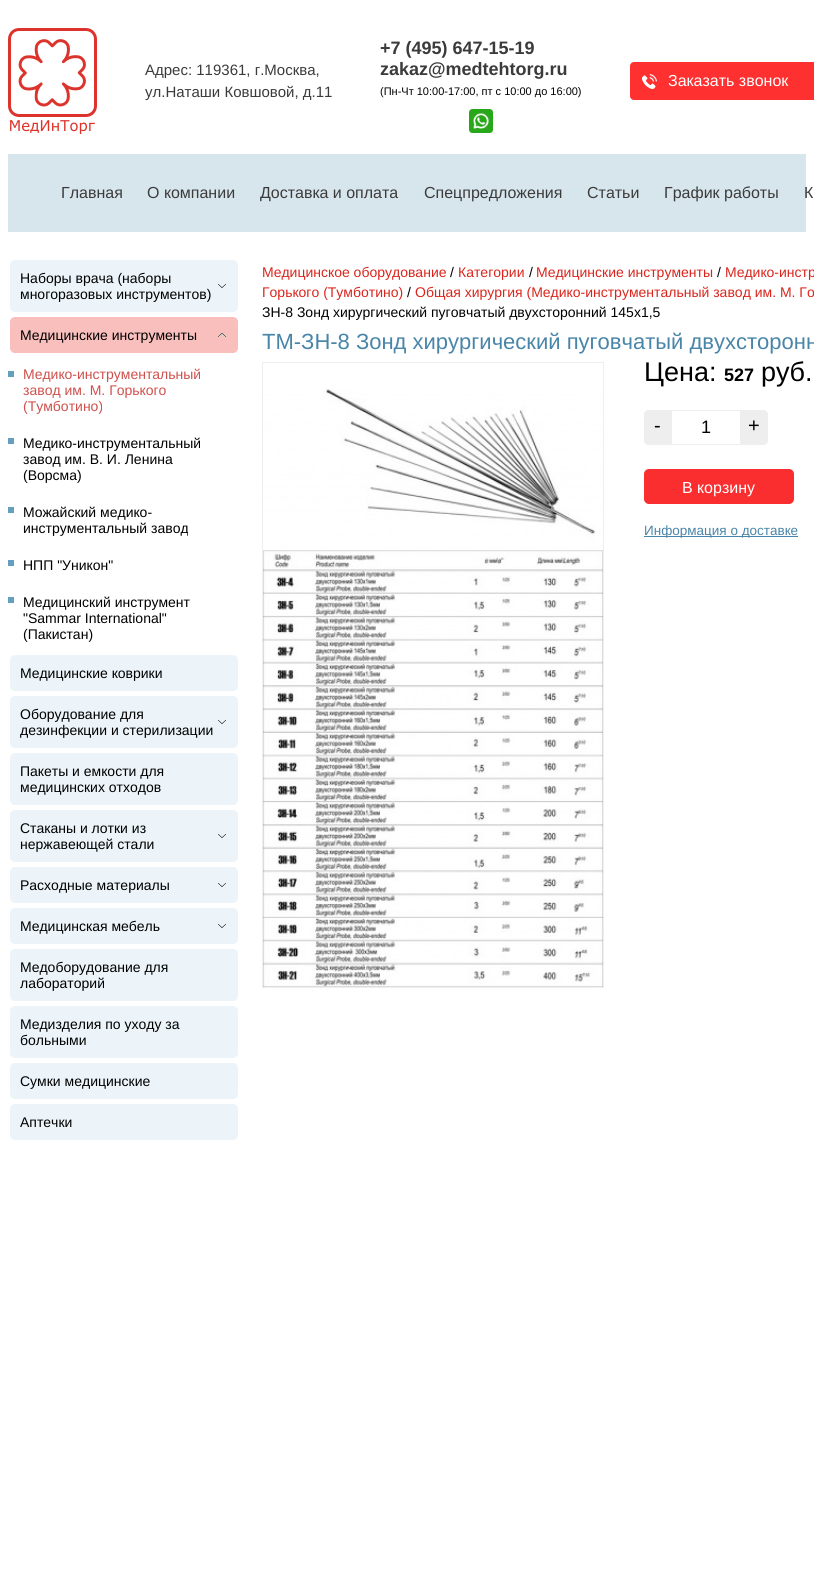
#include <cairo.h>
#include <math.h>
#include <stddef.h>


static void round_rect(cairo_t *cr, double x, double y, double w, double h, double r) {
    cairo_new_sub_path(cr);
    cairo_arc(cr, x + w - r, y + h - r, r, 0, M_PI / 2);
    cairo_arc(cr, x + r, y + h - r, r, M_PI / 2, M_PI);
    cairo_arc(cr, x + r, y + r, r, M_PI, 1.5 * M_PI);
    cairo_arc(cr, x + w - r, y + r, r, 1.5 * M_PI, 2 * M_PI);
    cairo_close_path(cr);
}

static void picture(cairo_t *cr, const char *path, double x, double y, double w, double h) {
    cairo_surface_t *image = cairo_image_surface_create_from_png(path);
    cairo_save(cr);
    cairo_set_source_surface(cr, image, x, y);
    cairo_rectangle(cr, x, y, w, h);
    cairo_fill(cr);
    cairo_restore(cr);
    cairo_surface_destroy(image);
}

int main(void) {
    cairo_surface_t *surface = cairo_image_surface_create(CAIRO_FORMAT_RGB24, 814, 1593);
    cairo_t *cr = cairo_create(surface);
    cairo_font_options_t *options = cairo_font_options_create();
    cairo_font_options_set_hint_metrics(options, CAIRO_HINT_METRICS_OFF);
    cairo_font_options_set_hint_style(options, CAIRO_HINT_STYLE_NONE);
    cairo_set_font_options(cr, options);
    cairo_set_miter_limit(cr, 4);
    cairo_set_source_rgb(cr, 1, 1, 1);
    cairo_paint(cr);
    picture(cr, "img1.png", 8, 28, 89, 106);
    cairo_select_font_face(cr, "Liberation Sans", CAIRO_FONT_SLANT_NORMAL, CAIRO_FONT_WEIGHT_NORMAL);
    cairo_set_font_size(cr, 15);
    cairo_set_source_rgb(cr, 0.235, 0.231, 0.231);
    cairo_move_to(cr, 145, 75);
    cairo_show_text(cr, "Адрес: 119361, г.Москва,");
    cairo_move_to(cr, 145, 97);
    cairo_show_text(cr, "ул.Наташи Ковшовой, д.11");
    cairo_select_font_face(cr, "Liberation Sans", CAIRO_FONT_SLANT_NORMAL, CAIRO_FONT_WEIGHT_BOLD);
    cairo_set_font_size(cr, 18);
    cairo_move_to(cr, 380, 54);
    cairo_show_text(cr, "+7 (495) 647-15-19");
    cairo_move_to(cr, 380, 75);
    cairo_show_text(cr, "zakaz@medtehtorg.ru");
    cairo_select_font_face(cr, "Liberation Sans", CAIRO_FONT_SLANT_NORMAL, CAIRO_FONT_WEIGHT_NORMAL);
    cairo_set_font_size(cr, 11);
    cairo_set_source_rgb(cr, 0, 0, 0);
    cairo_move_to(cr, 380, 95);
    cairo_show_text(cr, "(Пн-Чт 10:00-17:00, пт с 10:00 до 16:00)");
    picture(cr, "img2.png", 469, 109, 24, 24);
    cairo_set_source_rgb(cr, 1, 0.188, 0.188);
    round_rect(cr, 630, 62, 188, 38, 4);
    cairo_fill(cr);
    picture(cr, "img3.png", 642, 74, 15, 15);
    cairo_set_font_size(cr, 16);
    cairo_set_source_rgb(cr, 1, 1, 1);
    cairo_move_to(cr, 668, 86);
    cairo_show_text(cr, "Заказать звонок");
    cairo_set_source_rgb(cr, 0.843, 0.898, 0.922);
    cairo_rectangle(cr, 8, 154, 798, 78);
    cairo_fill(cr);
    cairo_set_source_rgb(cr, 0.235, 0.231, 0.231);
    cairo_move_to(cr, 61, 198);
    cairo_show_text(cr, "Главная");
    cairo_move_to(cr, 147, 198);
    cairo_show_text(cr, "О компании");
    cairo_move_to(cr, 260, 198);
    cairo_show_text(cr, "Доставка и оплата");
    cairo_move_to(cr, 424, 198);
    cairo_show_text(cr, "Спецпредложения");
    cairo_move_to(cr, 587, 198);
    cairo_show_text(cr, "Статьи");
    cairo_move_to(cr, 664, 198);
    cairo_show_text(cr, "График работы");
    cairo_move_to(cr, 804, 198);
    cairo_show_text(cr, "К");
    cairo_set_source_rgb(cr, 0.922, 0.957, 0.976);
    round_rect(cr, 10, 260, 228, 52, 5);
    cairo_fill(cr);
    picture(cr, "img4.png", 218, 284, 8, 4);
    cairo_set_font_size(cr, 14);
    cairo_set_source_rgb(cr, 0, 0, 0);
    cairo_move_to(cr, 20, 283);
    cairo_show_text(cr, "Наборы врача (наборы");
    cairo_move_to(cr, 20, 299);
    cairo_show_text(cr, "многоразовых инструментов)");
    cairo_set_source_rgb(cr, 0.976, 0.749, 0.741);
    round_rect(cr, 10, 317, 228, 36, 5);
    cairo_fill(cr);
    picture(cr, "img5.png", 218, 333, 8, 4);
    cairo_set_source_rgb(cr, 0, 0, 0);
    cairo_move_to(cr, 20, 340);
    cairo_show_text(cr, "Медицинские инструменты");
    cairo_set_source_rgb(cr, 0.392, 0.624, 0.757);
    cairo_rectangle(cr, 8, 371, 6, 6);
    cairo_fill(cr);
    cairo_set_source_rgb(cr, 0.808, 0.314, 0.298);
    cairo_move_to(cr, 23, 379);
    cairo_show_text(cr, "Медико-инструментальный");
    cairo_move_to(cr, 23, 395);
    cairo_show_text(cr, "завод им. М. Горького");
    cairo_move_to(cr, 23, 411);
    cairo_show_text(cr, "(Тумботино)");
    cairo_set_source_rgb(cr, 0.392, 0.624, 0.757);
    cairo_rectangle(cr, 8, 438, 6, 6);
    cairo_fill(cr);
    cairo_set_source_rgb(cr, 0, 0, 0);
    cairo_move_to(cr, 23, 448);
    cairo_show_text(cr, "Медико-инструментальный");
    cairo_move_to(cr, 23, 464);
    cairo_show_text(cr, "завод им. В. И. Ленина");
    cairo_move_to(cr, 23, 480);
    cairo_show_text(cr, "(Ворсма)");
    cairo_set_source_rgb(cr, 0.392, 0.624, 0.757);
    cairo_rectangle(cr, 8, 507, 6, 6);
    cairo_fill(cr);
    cairo_set_source_rgb(cr, 0, 0, 0);
    cairo_move_to(cr, 23, 517);
    cairo_show_text(cr, "Можайский медико-");
    cairo_move_to(cr, 23, 533);
    cairo_show_text(cr, "инструментальный завод");
    cairo_set_source_rgb(cr, 0.392, 0.624, 0.757);
    cairo_rectangle(cr, 8, 560, 6, 6);
    cairo_fill(cr);
    cairo_set_source_rgb(cr, 0, 0, 0);
    cairo_move_to(cr, 23, 570);
    cairo_show_text(cr, "НПП \"Уникон\"");
    cairo_set_source_rgb(cr, 0.392, 0.624, 0.757);
    cairo_rectangle(cr, 8, 597, 6, 6);
    cairo_fill(cr);
    cairo_set_source_rgb(cr, 0, 0, 0);
    cairo_move_to(cr, 23, 607);
    cairo_show_text(cr, "Медицинский инструмент");
    cairo_move_to(cr, 23, 623);
    cairo_show_text(cr, "\"Sammar International\"");
    cairo_move_to(cr, 23, 639);
    cairo_show_text(cr, "(Пакистан)");
    cairo_set_source_rgb(cr, 0.922, 0.957, 0.976);
    round_rect(cr, 10, 655, 228, 36, 5);
    cairo_fill(cr);
    cairo_set_source_rgb(cr, 0, 0, 0);
    cairo_move_to(cr, 20, 678);
    cairo_show_text(cr, "Медицинские коврики");
    cairo_set_source_rgb(cr, 0.922, 0.957, 0.976);
    round_rect(cr, 10, 696, 228, 52, 5);
    cairo_fill(cr);
    picture(cr, "img4.png", 218, 720, 8, 4);
    cairo_set_source_rgb(cr, 0, 0, 0);
    cairo_move_to(cr, 20, 719);
    cairo_show_text(cr, "Оборудование для");
    cairo_move_to(cr, 20, 735);
    cairo_show_text(cr, "дезинфекции и стерилизации");
    cairo_set_source_rgb(cr, 0.922, 0.957, 0.976);
    round_rect(cr, 10, 753, 228, 52, 5);
    cairo_fill(cr);
    cairo_set_source_rgb(cr, 0, 0, 0);
    cairo_move_to(cr, 20, 776);
    cairo_show_text(cr, "Пакеты и емкости для");
    cairo_move_to(cr, 20, 792);
    cairo_show_text(cr, "медицинских отходов");
    cairo_set_source_rgb(cr, 0.922, 0.957, 0.976);
    round_rect(cr, 10, 810, 228, 52, 5);
    cairo_fill(cr);
    picture(cr, "img4.png", 218, 834, 8, 4);
    cairo_set_source_rgb(cr, 0, 0, 0);
    cairo_move_to(cr, 20, 833);
    cairo_show_text(cr, "Стаканы и лотки из");
    cairo_move_to(cr, 20, 849);
    cairo_show_text(cr, "нержавеющей стали");
    cairo_set_source_rgb(cr, 0.922, 0.957, 0.976);
    round_rect(cr, 10, 867, 228, 36, 5);
    cairo_fill(cr);
    picture(cr, "img4.png", 218, 883, 8, 4);
    cairo_set_source_rgb(cr, 0, 0, 0);
    cairo_move_to(cr, 20, 890);
    cairo_show_text(cr, "Расходные материалы");
    cairo_set_source_rgb(cr, 0.922, 0.957, 0.976);
    round_rect(cr, 10, 908, 228, 36, 5);
    cairo_fill(cr);
    picture(cr, "img4.png", 218, 924, 8, 4);
    cairo_set_source_rgb(cr, 0, 0, 0);
    cairo_move_to(cr, 20, 931);
    cairo_show_text(cr, "Медицинская мебель");
    cairo_set_source_rgb(cr, 0.922, 0.957, 0.976);
    round_rect(cr, 10, 949, 228, 52, 5);
    cairo_fill(cr);
    cairo_set_source_rgb(cr, 0, 0, 0);
    cairo_move_to(cr, 20, 972);
    cairo_show_text(cr, "Медоборудование для");
    cairo_move_to(cr, 20, 988);
    cairo_show_text(cr, "лабораторий");
    cairo_set_source_rgb(cr, 0.922, 0.957, 0.976);
    round_rect(cr, 10, 1006, 228, 52, 5);
    cairo_fill(cr);
    cairo_set_source_rgb(cr, 0, 0, 0);
    cairo_move_to(cr, 20, 1029);
    cairo_show_text(cr, "Медизделия по уходу за");
    cairo_move_to(cr, 20, 1045);
    cairo_show_text(cr, "больными");
    cairo_set_source_rgb(cr, 0.922, 0.957, 0.976);
    round_rect(cr, 10, 1063, 228, 36, 5);
    cairo_fill(cr);
    cairo_set_source_rgb(cr, 0, 0, 0);
    cairo_move_to(cr, 20, 1086);
    cairo_show_text(cr, "Сумки медицинские");
    cairo_set_source_rgb(cr, 0.922, 0.957, 0.976);
    round_rect(cr, 10, 1104, 228, 36, 5);
    cairo_fill(cr);
    cairo_set_source_rgb(cr, 0, 0, 0);
    cairo_move_to(cr, 20, 1127);
    cairo_show_text(cr, "Аптечки");
    cairo_set_source_rgb(cr, 0.855, 0.145, 0.11);
    cairo_move_to(cr, 262, 277);
    cairo_show_text(cr, "Медицинское оборудование");
    cairo_set_source_rgb(cr, 0, 0, 0);
    cairo_move_to(cr, 450, 277);
    cairo_show_text(cr, "/");
    cairo_set_source_rgb(cr, 0.855, 0.145, 0.11);
    cairo_move_to(cr, 458, 277);
    cairo_show_text(cr, "Категории");
    cairo_set_source_rgb(cr, 0, 0, 0);
    cairo_move_to(cr, 529, 277);
    cairo_show_text(cr, "/");
    cairo_set_source_rgb(cr, 0.855, 0.145, 0.11);
    cairo_move_to(cr, 536, 277);
    cairo_show_text(cr, "Медицинские инструменты");
    cairo_set_source_rgb(cr, 0, 0, 0);
    cairo_move_to(cr, 717, 277);
    cairo_show_text(cr, "/");
    cairo_set_source_rgb(cr, 0.855, 0.145, 0.11);
    cairo_move_to(cr, 725, 277);
    cairo_show_text(cr, "Медико-инстр");
    cairo_move_to(cr, 262, 297);
    cairo_show_text(cr, "Горького (Тумботино)");
    cairo_set_source_rgb(cr, 0, 0, 0);
    cairo_move_to(cr, 407, 297);
    cairo_show_text(cr, "/");
    cairo_set_source_rgb(cr, 0.855, 0.145, 0.11);
    cairo_move_to(cr, 415, 297);
    cairo_show_text(cr, "Общая хирургия (Медико-инструментальный завод им. М. Го");
    cairo_set_source_rgb(cr, 0, 0, 0);
    cairo_move_to(cr, 262, 317);
    cairo_show_text(cr, "ЗН-8 Зонд хирургический пуговчатый двухсторонний 145х1,5");
    cairo_set_font_size(cr, 22);
    cairo_set_source_rgb(cr, 0.286, 0.522, 0.659);
    cairo_move_to(cr, 262, 349);
    cairo_show_text(cr, "ТМ-ЗН-8 Зонд хирургический пуговчатый двухсторонн");
    cairo_rectangle(cr, 262.5, 362.5, 341, 625);
    cairo_set_source_rgb(cr, 0.933, 0.933, 0.933);
    cairo_set_line_width(cr, 1);
    cairo_stroke(cr);
    picture(cr, "img6.png", 263, 389, 340, 598);
    cairo_set_font_size(cr, 27);
    cairo_set_source_rgb(cr, 0, 0, 0);
    cairo_move_to(cr, 644, 381);
    cairo_show_text(cr, "Цена:");
    cairo_select_font_face(cr, "Liberation Sans", CAIRO_FONT_SLANT_NORMAL, CAIRO_FONT_WEIGHT_BOLD);
    cairo_set_font_size(cr, 18);
    cairo_move_to(cr, 724, 381);
    cairo_show_text(cr, "527");
    cairo_select_font_face(cr, "Liberation Sans", CAIRO_FONT_SLANT_NORMAL, CAIRO_FONT_WEIGHT_NORMAL);
    cairo_set_font_size(cr, 27);
    cairo_move_to(cr, 761, 381);
    cairo_show_text(cr, "руб.");
    cairo_set_source_rgb(cr, 0.933, 0.933, 0.933);
    cairo_new_path(cr);
    cairo_move_to(cr, 648, 410);
    cairo_line_to(cr, 671, 410);
    cairo_line_to(cr, 671, 445);
    cairo_line_to(cr, 648, 445);
    cairo_curve_to(cr, 646, 445, 644, 443, 644, 441);
    cairo_line_to(cr, 644, 414);
    cairo_curve_to(cr, 644, 412, 646, 410, 648, 410);
    cairo_close_path(cr);
    cairo_fill(cr);
    cairo_set_font_size(cr, 20);
    cairo_set_source_rgb(cr, 0, 0, 0);
    cairo_move_to(cr, 654, 432);
    cairo_show_text(cr, "-");
    cairo_rectangle(cr, 671.5, 410.5, 69, 34);
    cairo_set_source_rgb(cr, 0.933, 0.933, 0.933);
    cairo_stroke(cr);
    cairo_set_font_size(cr, 18);
    cairo_set_source_rgb(cr, 0, 0, 0);
    cairo_move_to(cr, 701, 433);
    cairo_show_text(cr, "1");
    cairo_set_source_rgb(cr, 0.933, 0.933, 0.933);
    cairo_new_path(cr);
    cairo_move_to(cr, 741, 410);
    cairo_line_to(cr, 764, 410);
    cairo_curve_to(cr, 766, 410, 768, 412, 768, 414);
    cairo_line_to(cr, 768, 441);
    cairo_curve_to(cr, 768, 443, 766, 445, 764, 445);
    cairo_line_to(cr, 741, 445);
    cairo_close_path(cr);
    cairo_fill(cr);
    cairo_set_font_size(cr, 20);
    cairo_set_source_rgb(cr, 0, 0, 0);
    cairo_move_to(cr, 748, 432);
    cairo_show_text(cr, "+");
    cairo_set_source_rgb(cr, 0.984, 0.18, 0.184);
    round_rect(cr, 644, 469, 150, 35, 5);
    cairo_fill(cr);
    cairo_set_font_size(cr, 16);
    cairo_set_source_rgb(cr, 1, 1, 1);
    cairo_move_to(cr, 682, 493);
    cairo_show_text(cr, "В корзину");
    cairo_set_source_rgb(cr, 0.286, 0.522, 0.659);
    cairo_rectangle(cr, 644, 536, 154, 1);
    cairo_fill(cr);
    cairo_set_font_size(cr, 13.5);
    cairo_move_to(cr, 644, 535);
    cairo_show_text(cr, "Информация о доставке");
    cairo_surface_write_to_png(surface, "page.png");
    cairo_font_options_destroy(options);
    cairo_destroy(cr);
    cairo_surface_destroy(surface);
    return 0;
}
